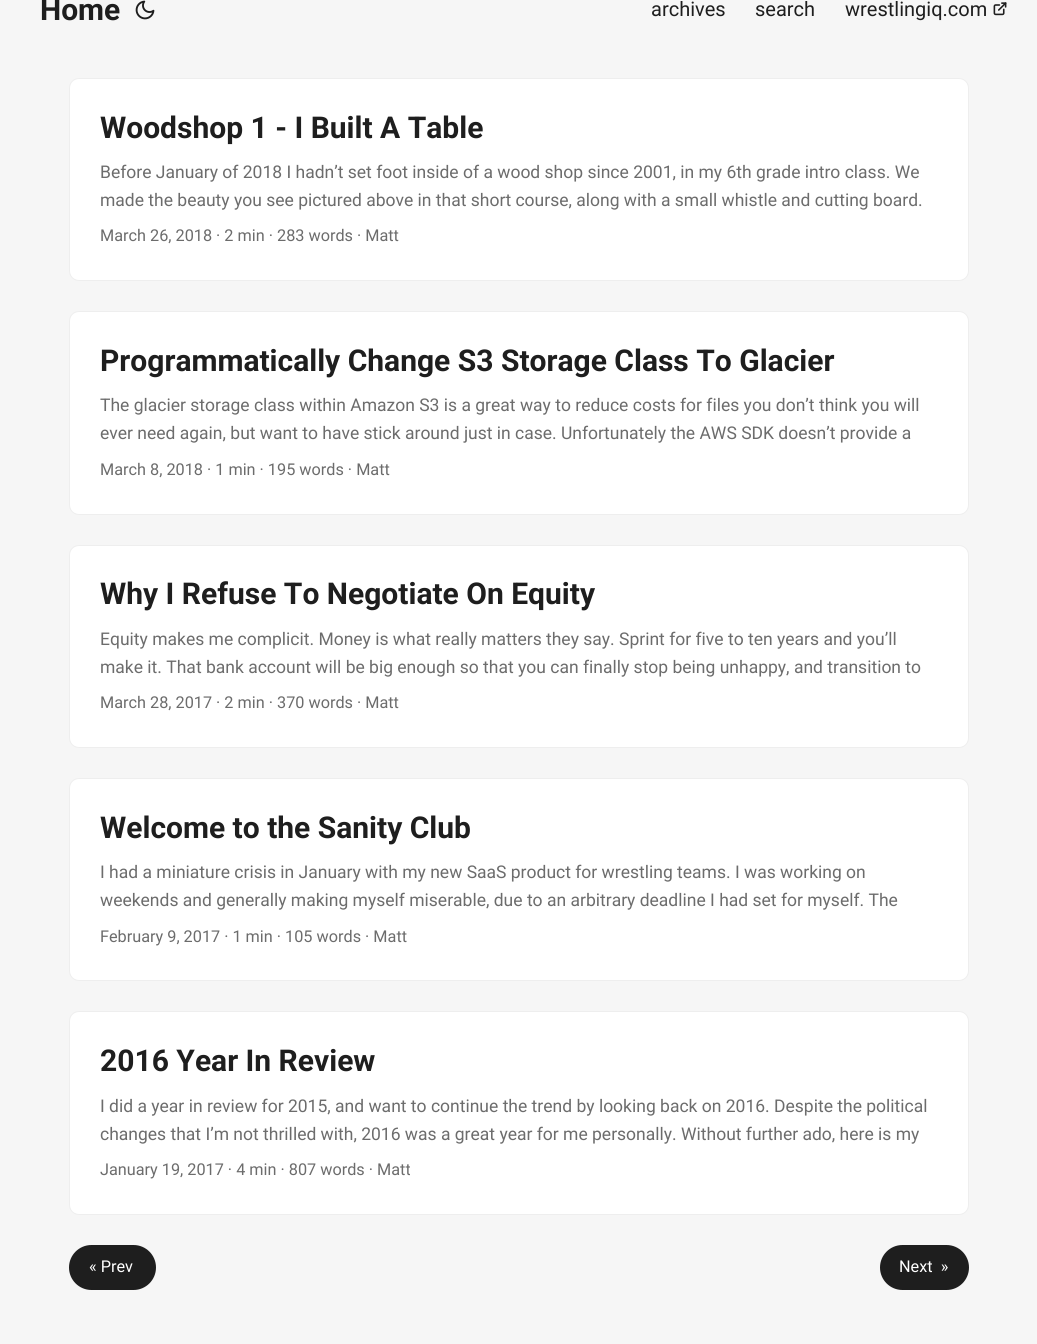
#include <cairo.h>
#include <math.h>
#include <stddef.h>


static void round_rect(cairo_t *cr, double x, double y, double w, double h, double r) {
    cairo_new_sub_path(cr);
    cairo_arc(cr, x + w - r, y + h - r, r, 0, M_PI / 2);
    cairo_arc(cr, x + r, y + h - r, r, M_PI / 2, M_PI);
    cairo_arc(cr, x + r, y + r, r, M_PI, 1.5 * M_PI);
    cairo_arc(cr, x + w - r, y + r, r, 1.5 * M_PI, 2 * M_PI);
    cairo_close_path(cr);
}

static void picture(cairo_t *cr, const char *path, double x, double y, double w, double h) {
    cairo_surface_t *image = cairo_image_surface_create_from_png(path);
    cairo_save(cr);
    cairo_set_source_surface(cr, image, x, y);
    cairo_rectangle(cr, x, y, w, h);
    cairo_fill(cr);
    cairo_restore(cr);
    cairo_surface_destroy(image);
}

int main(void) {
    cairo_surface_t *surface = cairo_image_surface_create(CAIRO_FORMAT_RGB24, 1037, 1344);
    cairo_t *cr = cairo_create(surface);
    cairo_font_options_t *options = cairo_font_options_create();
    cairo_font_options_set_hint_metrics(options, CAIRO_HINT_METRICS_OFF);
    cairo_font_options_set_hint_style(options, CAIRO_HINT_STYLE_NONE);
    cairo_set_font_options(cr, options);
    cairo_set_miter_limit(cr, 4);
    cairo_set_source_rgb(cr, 0.961, 0.961, 0.961);
    cairo_paint(cr);
    cairo_select_font_face(cr, "Roboto", CAIRO_FONT_SLANT_NORMAL, CAIRO_FONT_WEIGHT_BOLD);
    cairo_set_font_size(cr, 30);
    cairo_set_source_rgb(cr, 0.118, 0.118, 0.118);
    cairo_move_to(cr, 40, 20);
    cairo_show_text(cr, "Home");
    picture(cr, "img1.png", 135, 0, 20, 20);
    cairo_select_font_face(cr, "Roboto", CAIRO_FONT_SLANT_NORMAL, CAIRO_FONT_WEIGHT_NORMAL);
    cairo_set_font_size(cr, 20);
    cairo_move_to(cr, 651, 16);
    cairo_show_text(cr, "archives");
    cairo_move_to(cr, 755, 16);
    cairo_show_text(cr, "search");
    cairo_move_to(cr, 845, 16);
    cairo_show_text(cr, "wrestlingiq.com");
    picture(cr, "img2.png", 993, 2, 14, 14);
    cairo_set_source_rgb(cr, 1, 1, 1);
    round_rect(cr, 69.5, 78.5, 899, 202, 9.5);
    cairo_fill_preserve(cr);
    cairo_set_source_rgb(cr, 0.933, 0.933, 0.933);
    cairo_set_line_width(cr, 1);
    cairo_stroke(cr);
    cairo_select_font_face(cr, "Roboto", CAIRO_FONT_SLANT_NORMAL, CAIRO_FONT_WEIGHT_BOLD);
    cairo_set_font_size(cr, 30);
    cairo_set_source_rgb(cr, 0.118, 0.118, 0.118);
    cairo_move_to(cr, 100, 138);
    cairo_show_text(cr, "Woodshop 1 - I Built A Table");
    cairo_select_font_face(cr, "Roboto", CAIRO_FONT_SLANT_NORMAL, CAIRO_FONT_WEIGHT_NORMAL);
    cairo_set_font_size(cr, 17.5);
    cairo_set_source_rgb(cr, 0.424, 0.424, 0.424);
    cairo_move_to(cr, 100, 178);
    cairo_show_text(cr, "Before January of 2018 I hadn’t set foot inside of a wood shop since 2001, in my 6th grade intro class. We");
    cairo_move_to(cr, 100, 206);
    cairo_show_text(cr, "made the beauty you see pictured above in that short course, along with a small whistle and cutting board.");
    cairo_set_font_size(cr, 16.25);
    cairo_move_to(cr, 100, 241);
    cairo_show_text(cr, "March 26, 2018 · 2 min · 283 words · Matt");
    cairo_set_source_rgb(cr, 1, 1, 1);
    round_rect(cr, 69.5, 311.5, 899, 203, 9.5);
    cairo_fill_preserve(cr);
    cairo_set_source_rgb(cr, 0.933, 0.933, 0.933);
    cairo_stroke(cr);
    cairo_select_font_face(cr, "Roboto", CAIRO_FONT_SLANT_NORMAL, CAIRO_FONT_WEIGHT_BOLD);
    cairo_set_font_size(cr, 30);
    cairo_set_source_rgb(cr, 0.118, 0.118, 0.118);
    cairo_move_to(cr, 100, 371);
    cairo_show_text(cr, "Programmatically Change S3 Storage Class To Glacier");
    cairo_select_font_face(cr, "Roboto", CAIRO_FONT_SLANT_NORMAL, CAIRO_FONT_WEIGHT_NORMAL);
    cairo_set_font_size(cr, 17.5);
    cairo_set_source_rgb(cr, 0.424, 0.424, 0.424);
    cairo_move_to(cr, 100, 411);
    cairo_show_text(cr, "The glacier storage class within Amazon S3 is a great way to reduce costs for files you don’t think you will");
    cairo_move_to(cr, 100, 439);
    cairo_show_text(cr, "ever need again, but want to have stick around just in case. Unfortunately the AWS SDK doesn’t provide a");
    cairo_set_font_size(cr, 16.25);
    cairo_move_to(cr, 100, 475);
    cairo_show_text(cr, "March 8, 2018 · 1 min · 195 words · Matt");
    cairo_set_source_rgb(cr, 1, 1, 1);
    round_rect(cr, 69.5, 545.5, 899, 202, 9.5);
    cairo_fill_preserve(cr);
    cairo_set_source_rgb(cr, 0.933, 0.933, 0.933);
    cairo_stroke(cr);
    cairo_select_font_face(cr, "Roboto", CAIRO_FONT_SLANT_NORMAL, CAIRO_FONT_WEIGHT_BOLD);
    cairo_set_font_size(cr, 30);
    cairo_set_source_rgb(cr, 0.118, 0.118, 0.118);
    cairo_move_to(cr, 100, 604);
    cairo_show_text(cr, "Why I Refuse To Negotiate On Equity");
    cairo_select_font_face(cr, "Roboto", CAIRO_FONT_SLANT_NORMAL, CAIRO_FONT_WEIGHT_NORMAL);
    cairo_set_font_size(cr, 17.5);
    cairo_set_source_rgb(cr, 0.424, 0.424, 0.424);
    cairo_move_to(cr, 100, 645);
    cairo_show_text(cr, "Equity makes me complicit. Money is what really matters they say. Sprint for five to ten years and you’ll");
    cairo_move_to(cr, 100, 673);
    cairo_show_text(cr, "make it. That bank account will be big enough so that you can finally stop being unhappy, and transition to");
    cairo_set_font_size(cr, 16.25);
    cairo_move_to(cr, 100, 708);
    cairo_show_text(cr, "March 28, 2017 · 2 min · 370 words · Matt");
    cairo_set_source_rgb(cr, 1, 1, 1);
    round_rect(cr, 69.5, 778.5, 899, 202, 9.5);
    cairo_fill_preserve(cr);
    cairo_set_source_rgb(cr, 0.933, 0.933, 0.933);
    cairo_stroke(cr);
    cairo_select_font_face(cr, "Roboto", CAIRO_FONT_SLANT_NORMAL, CAIRO_FONT_WEIGHT_BOLD);
    cairo_set_font_size(cr, 30);
    cairo_set_source_rgb(cr, 0.118, 0.118, 0.118);
    cairo_move_to(cr, 100, 838);
    cairo_show_text(cr, "Welcome to the Sanity Club");
    cairo_select_font_face(cr, "Roboto", CAIRO_FONT_SLANT_NORMAL, CAIRO_FONT_WEIGHT_NORMAL);
    cairo_set_font_size(cr, 17.5);
    cairo_set_source_rgb(cr, 0.424, 0.424, 0.424);
    cairo_move_to(cr, 100, 878);
    cairo_show_text(cr, "I had a miniature crisis in January with my new SaaS product for wrestling teams. I was working on");
    cairo_move_to(cr, 100, 906);
    cairo_show_text(cr, "weekends and generally making myself miserable, due to an arbitrary deadline I had set for myself. The");
    cairo_set_font_size(cr, 16.25);
    cairo_move_to(cr, 100, 942);
    cairo_show_text(cr, "February 9, 2017 · 1 min · 105 words · Matt");
    cairo_set_source_rgb(cr, 1, 1, 1);
    round_rect(cr, 69.5, 1011.5, 899, 203, 9.5);
    cairo_fill_preserve(cr);
    cairo_set_source_rgb(cr, 0.933, 0.933, 0.933);
    cairo_stroke(cr);
    cairo_select_font_face(cr, "Roboto", CAIRO_FONT_SLANT_NORMAL, CAIRO_FONT_WEIGHT_BOLD);
    cairo_set_font_size(cr, 30);
    cairo_set_source_rgb(cr, 0.118, 0.118, 0.118);
    cairo_move_to(cr, 100, 1071);
    cairo_show_text(cr, "2016 Year In Review");
    cairo_select_font_face(cr, "Roboto", CAIRO_FONT_SLANT_NORMAL, CAIRO_FONT_WEIGHT_NORMAL);
    cairo_set_font_size(cr, 17.5);
    cairo_set_source_rgb(cr, 0.424, 0.424, 0.424);
    cairo_move_to(cr, 100, 1112);
    cairo_show_text(cr, "I did a year in review for 2015, and want to continue the trend by looking back on 2016. Despite the political");
    cairo_move_to(cr, 100, 1140);
    cairo_show_text(cr, "changes that I’m not thrilled with, 2016 was a great year for me personally. Without further ado, here is my");
    cairo_set_font_size(cr, 16.25);
    cairo_move_to(cr, 100, 1175);
    cairo_show_text(cr, "January 19, 2017 · 4 min · 807 words · Matt");
    cairo_set_source_rgb(cr, 0.118, 0.118, 0.118);
    round_rect(cr, 69, 1245, 87, 45, 22.5);
    cairo_fill(cr);
    cairo_set_source_rgb(cr, 1, 1, 1);
    cairo_move_to(cr, 89, 1272);
    cairo_show_text(cr, "« Prev");
    cairo_set_source_rgb(cr, 0.118, 0.118, 0.118);
    round_rect(cr, 880, 1245, 89, 45, 22.5);
    cairo_fill(cr);
    cairo_set_source_rgb(cr, 1, 1, 1);
    cairo_move_to(cr, 899, 1272);
    cairo_show_text(cr, "Next  »");
    cairo_surface_write_to_png(surface, "page.png");
    cairo_font_options_destroy(options);
    cairo_destroy(cr);
    cairo_surface_destroy(surface);
    return 0;
}
